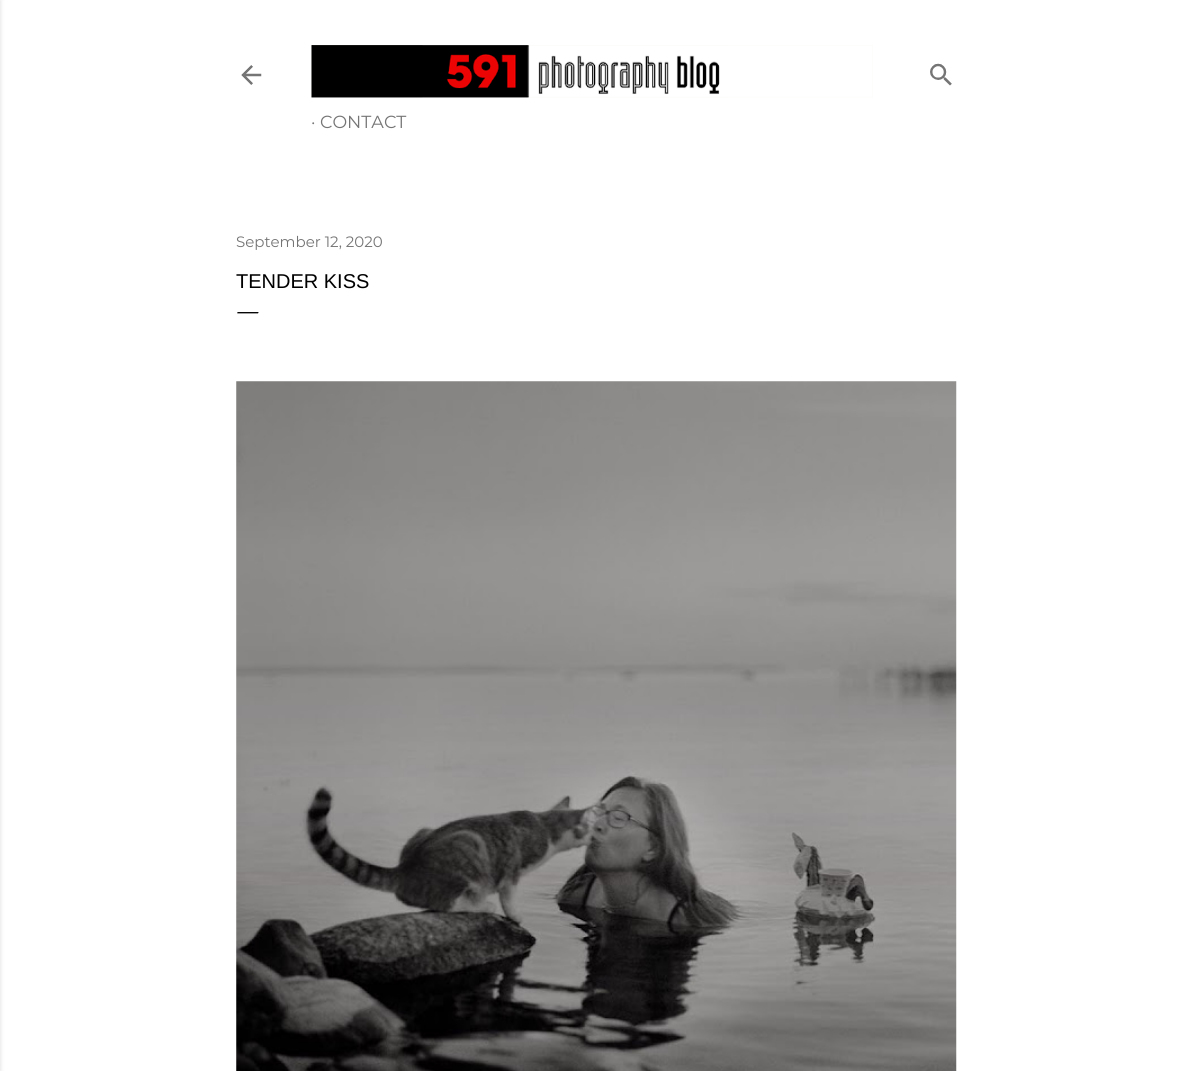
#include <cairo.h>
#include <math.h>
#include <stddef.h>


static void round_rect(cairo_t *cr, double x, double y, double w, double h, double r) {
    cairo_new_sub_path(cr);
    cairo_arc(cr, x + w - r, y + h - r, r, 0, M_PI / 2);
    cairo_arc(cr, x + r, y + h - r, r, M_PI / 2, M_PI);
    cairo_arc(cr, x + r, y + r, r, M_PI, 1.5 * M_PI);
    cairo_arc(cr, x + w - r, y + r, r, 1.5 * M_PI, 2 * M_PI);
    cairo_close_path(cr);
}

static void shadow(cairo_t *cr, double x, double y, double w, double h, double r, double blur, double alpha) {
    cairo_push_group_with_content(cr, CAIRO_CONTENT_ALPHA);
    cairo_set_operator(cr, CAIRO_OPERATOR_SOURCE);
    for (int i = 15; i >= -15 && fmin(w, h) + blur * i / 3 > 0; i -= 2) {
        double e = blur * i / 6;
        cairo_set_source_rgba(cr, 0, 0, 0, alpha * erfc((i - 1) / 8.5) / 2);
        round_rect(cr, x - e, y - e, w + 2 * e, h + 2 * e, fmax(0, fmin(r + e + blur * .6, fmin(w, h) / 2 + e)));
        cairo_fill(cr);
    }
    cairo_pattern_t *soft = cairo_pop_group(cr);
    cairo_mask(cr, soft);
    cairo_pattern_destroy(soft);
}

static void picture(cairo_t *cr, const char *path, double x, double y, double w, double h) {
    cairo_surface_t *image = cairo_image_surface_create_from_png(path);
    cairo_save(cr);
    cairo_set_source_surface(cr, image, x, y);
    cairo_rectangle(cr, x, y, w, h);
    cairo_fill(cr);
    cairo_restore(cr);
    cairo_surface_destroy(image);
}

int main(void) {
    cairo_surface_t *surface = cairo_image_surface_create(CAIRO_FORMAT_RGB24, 1192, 1071);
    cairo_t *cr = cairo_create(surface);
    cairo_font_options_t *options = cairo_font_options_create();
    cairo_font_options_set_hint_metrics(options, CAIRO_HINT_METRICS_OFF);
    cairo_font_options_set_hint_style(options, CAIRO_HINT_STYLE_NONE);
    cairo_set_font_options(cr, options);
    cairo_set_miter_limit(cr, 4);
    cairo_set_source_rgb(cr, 1, 1, 1);
    cairo_paint(cr);
    cairo_set_source_rgb(cr, 0, 0, 0);
    shadow(cr, -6, 0, 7, 1071, 0, 2, 0.1);
    picture(cr, "img1.png", 241, 65, 21, 20);
    picture(cr, "img2.png", 930, 63, 22, 23);
    picture(cr, "img3.png", 311, 45, 562, 53);
    cairo_select_font_face(cr, "Montserrat", CAIRO_FONT_SLANT_NORMAL, CAIRO_FONT_WEIGHT_NORMAL);
    cairo_set_font_size(cr, 17.5);
    cairo_set_source_rgb(cr, 0.459, 0.459, 0.459);
    cairo_move_to(cr, 311, 128);
    cairo_show_text(cr, "· CONTACT");
    cairo_set_font_size(cr, 15);
    cairo_move_to(cr, 236, 247);
    cairo_show_text(cr, "September 12, 2020");
    cairo_select_font_face(cr, "Liberation Sans", CAIRO_FONT_SLANT_NORMAL, CAIRO_FONT_WEIGHT_NORMAL);
    cairo_set_font_size(cr, 20);
    cairo_set_source_rgb(cr, 0, 0, 0);
    cairo_move_to(cr, 236, 288);
    cairo_show_text(cr, "TENDER KISS");
    cairo_select_font_face(cr, "EB Garamond", CAIRO_FONT_SLANT_NORMAL, CAIRO_FONT_WEIGHT_NORMAL);
    cairo_set_font_size(cr, 25);
    cairo_move_to(cr, 236, 318);
    cairo_show_text(cr, "—");
    picture(cr, "img4.png", 236, 381, 721, 690);
    cairo_surface_write_to_png(surface, "page.png");
    cairo_font_options_destroy(options);
    cairo_destroy(cr);
    cairo_surface_destroy(surface);
    return 0;
}
